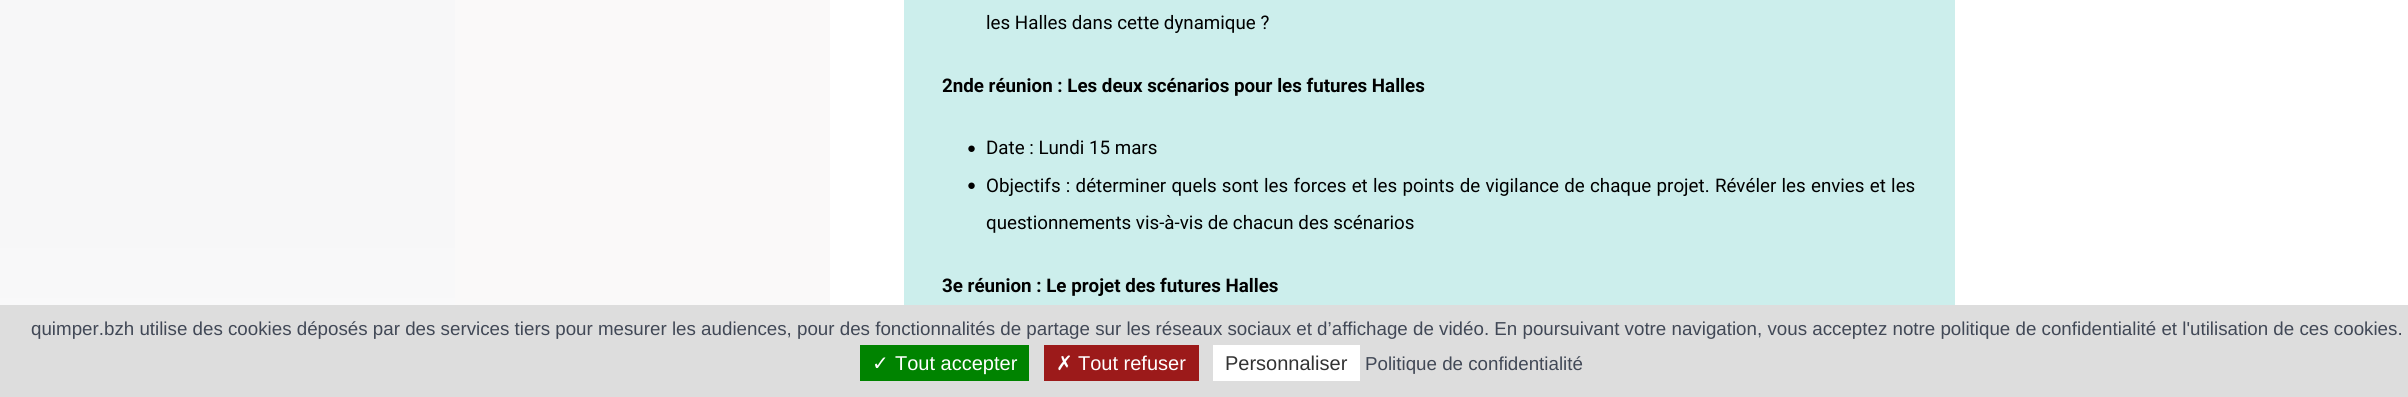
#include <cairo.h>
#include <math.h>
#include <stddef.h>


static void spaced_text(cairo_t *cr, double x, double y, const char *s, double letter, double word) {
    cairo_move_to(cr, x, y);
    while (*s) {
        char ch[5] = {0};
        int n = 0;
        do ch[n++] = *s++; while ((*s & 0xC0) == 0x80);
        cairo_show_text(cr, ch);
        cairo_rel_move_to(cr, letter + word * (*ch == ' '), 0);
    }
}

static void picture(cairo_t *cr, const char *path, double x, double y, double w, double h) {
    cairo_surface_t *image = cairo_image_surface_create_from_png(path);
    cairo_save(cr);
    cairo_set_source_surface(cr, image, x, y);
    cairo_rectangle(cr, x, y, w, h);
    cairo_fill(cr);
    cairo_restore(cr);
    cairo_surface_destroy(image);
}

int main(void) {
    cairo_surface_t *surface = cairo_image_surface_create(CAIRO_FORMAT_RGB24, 2408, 397);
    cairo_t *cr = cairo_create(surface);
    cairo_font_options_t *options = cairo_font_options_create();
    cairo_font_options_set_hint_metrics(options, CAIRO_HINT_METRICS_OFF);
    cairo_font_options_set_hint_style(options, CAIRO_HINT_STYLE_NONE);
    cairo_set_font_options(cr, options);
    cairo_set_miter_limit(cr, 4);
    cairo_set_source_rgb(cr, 1, 1, 1);
    cairo_paint(cr);
    picture(cr, "img1.png", 0, 0, 455, 305);
    cairo_set_source_rgb(cr, 0.98, 0.976, 0.973);
    cairo_rectangle(cr, 455, 0, 375, 305);
    cairo_fill(cr);
    cairo_set_source_rgb(cr, 0.8, 0.933, 0.925);
    cairo_rectangle(cr, 904, 0, 1051, 305);
    cairo_fill(cr);
    cairo_select_font_face(cr, "Roboto", CAIRO_FONT_SLANT_NORMAL, CAIRO_FONT_WEIGHT_NORMAL);
    cairo_set_font_size(cr, 18.75);
    cairo_set_source_rgb(cr, 0, 0, 0);
    cairo_move_to(cr, 986, 29);
    cairo_show_text(cr, "les Halles dans cette dynamique ?");
    cairo_select_font_face(cr, "Roboto", CAIRO_FONT_SLANT_NORMAL, CAIRO_FONT_WEIGHT_BOLD);
    cairo_move_to(cr, 942, 92);
    cairo_show_text(cr, "2nde réunion : Les deux scénarios pour les futures Halles");
    cairo_select_font_face(cr, "Liberation Sans", CAIRO_FONT_SLANT_NORMAL, CAIRO_FONT_WEIGHT_NORMAL);
    cairo_set_font_size(cr, 15);
    cairo_move_to(cr, 967, 153);
    cairo_show_text(cr, "●");
    cairo_select_font_face(cr, "Roboto", CAIRO_FONT_SLANT_NORMAL, CAIRO_FONT_WEIGHT_NORMAL);
    cairo_set_font_size(cr, 18.75);
    cairo_move_to(cr, 986, 154);
    cairo_show_text(cr, "Date : Lundi 15 mars");
    cairo_select_font_face(cr, "Liberation Sans", CAIRO_FONT_SLANT_NORMAL, CAIRO_FONT_WEIGHT_NORMAL);
    cairo_set_font_size(cr, 15);
    cairo_move_to(cr, 967, 190);
    cairo_show_text(cr, "●");
    cairo_select_font_face(cr, "Roboto", CAIRO_FONT_SLANT_NORMAL, CAIRO_FONT_WEIGHT_NORMAL);
    cairo_set_font_size(cr, 18.75);
    spaced_text(cr, 986, 192, "Objectifs : déterminer quels sont les forces et les points de vigilance de chaque projet. Révéler les envies et les", 0, 0.6);
    cairo_move_to(cr, 986, 229);
    cairo_show_text(cr, "questionnements vis-à-vis de chacun des scénarios");
    cairo_select_font_face(cr, "Roboto", CAIRO_FONT_SLANT_NORMAL, CAIRO_FONT_WEIGHT_BOLD);
    cairo_move_to(cr, 942, 292);
    cairo_show_text(cr, "3e réunion : Le projet des futures Halles");
    cairo_set_source_rgb(cr, 0.867, 0.867, 0.867);
    cairo_rectangle(cr, 0, 305, 2408, 92);
    cairo_fill(cr);
    cairo_select_font_face(cr, "Liberation Sans", CAIRO_FONT_SLANT_NORMAL, CAIRO_FONT_WEIGHT_NORMAL);
    cairo_set_source_rgb(cr, 0.255, 0.282, 0.337);
    cairo_move_to(cr, 31, 335);
    cairo_show_text(cr, "quimper.bzh utilise des cookies déposés par des services tiers pour mesurer les audiences, pour des fonctionnalités de partage sur les réseaux sociaux et d’affichage de vidéo. En poursuivant votre navigation, vous acceptez notre politique de confidentialité et l'utilisation de ces cookies.");
    cairo_set_source_rgb(cr, 0, 0.514, 0);
    cairo_rectangle(cr, 860, 345, 169, 36);
    cairo_fill(cr);
    cairo_select_font_face(cr, "DejaVu Sans", CAIRO_FONT_SLANT_NORMAL, CAIRO_FONT_WEIGHT_NORMAL);
    cairo_set_font_size(cr, 20);
    cairo_set_source_rgb(cr, 1, 1, 1);
    cairo_move_to(cr, 872, 370);
    cairo_show_text(cr, "✓");
    cairo_select_font_face(cr, "Liberation Sans", CAIRO_FONT_SLANT_NORMAL, CAIRO_FONT_WEIGHT_NORMAL);
    cairo_move_to(cr, 895, 370);
    cairo_show_text(cr, "Tout accepter");
    cairo_set_source_rgb(cr, 0.612, 0.102, 0.102);
    cairo_rectangle(cr, 1044, 345, 155, 36);
    cairo_fill(cr);
    cairo_select_font_face(cr, "DejaVu Sans", CAIRO_FONT_SLANT_NORMAL, CAIRO_FONT_WEIGHT_NORMAL);
    cairo_set_source_rgb(cr, 1, 1, 1);
    cairo_move_to(cr, 1056, 370);
    cairo_show_text(cr, "✗");
    cairo_select_font_face(cr, "Liberation Sans", CAIRO_FONT_SLANT_NORMAL, CAIRO_FONT_WEIGHT_NORMAL);
    cairo_move_to(cr, 1078, 370);
    cairo_show_text(cr, "Tout refuser");
    cairo_rectangle(cr, 1213, 345, 147, 36);
    cairo_fill(cr);
    cairo_set_source_rgb(cr, 0.2, 0.2, 0.2);
    cairo_move_to(cr, 1225, 370);
    cairo_show_text(cr, "Personnaliser");
    cairo_set_font_size(cr, 18.75);
    cairo_set_source_rgb(cr, 0.255, 0.282, 0.337);
    cairo_move_to(cr, 1365, 370);
    cairo_show_text(cr, "Politique de confidentialité");
    cairo_surface_write_to_png(surface, "page.png");
    cairo_font_options_destroy(options);
    cairo_destroy(cr);
    cairo_surface_destroy(surface);
    return 0;
}
